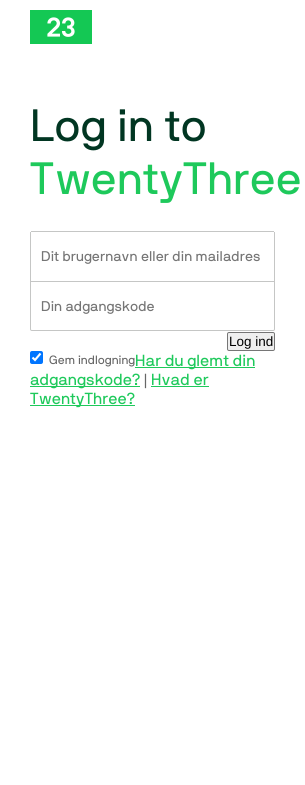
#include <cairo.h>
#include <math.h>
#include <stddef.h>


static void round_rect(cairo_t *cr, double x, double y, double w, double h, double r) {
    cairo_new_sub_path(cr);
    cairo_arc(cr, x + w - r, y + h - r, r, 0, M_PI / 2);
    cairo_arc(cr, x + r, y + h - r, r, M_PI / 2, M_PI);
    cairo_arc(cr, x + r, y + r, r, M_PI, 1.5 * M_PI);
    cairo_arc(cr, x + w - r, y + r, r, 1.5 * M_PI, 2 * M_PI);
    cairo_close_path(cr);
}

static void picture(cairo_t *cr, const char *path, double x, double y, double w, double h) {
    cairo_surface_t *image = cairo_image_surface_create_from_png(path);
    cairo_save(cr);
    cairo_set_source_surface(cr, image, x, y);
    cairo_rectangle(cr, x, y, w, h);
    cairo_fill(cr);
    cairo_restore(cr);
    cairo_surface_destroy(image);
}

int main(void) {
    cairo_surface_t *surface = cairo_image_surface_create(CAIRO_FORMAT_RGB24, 305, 785);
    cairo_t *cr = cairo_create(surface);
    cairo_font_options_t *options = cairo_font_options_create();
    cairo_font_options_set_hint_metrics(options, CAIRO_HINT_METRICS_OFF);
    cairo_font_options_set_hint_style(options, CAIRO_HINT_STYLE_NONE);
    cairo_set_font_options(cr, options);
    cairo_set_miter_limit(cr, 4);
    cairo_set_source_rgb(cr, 1, 1, 1);
    cairo_paint(cr);
    picture(cr, "img1.png", 30, 10, 62, 34);
    cairo_select_font_face(cr, "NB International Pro", CAIRO_FONT_SLANT_NORMAL, CAIRO_FONT_WEIGHT_NORMAL);
    cairo_set_font_size(cr, 45);
    cairo_set_source_rgb(cr, 0.004, 0.212, 0.133);
    cairo_move_to(cr, 30, 141);
    cairo_show_text(cr, "Log in to");
    cairo_set_source_rgb(cr, 0.118, 0.788, 0.357);
    cairo_move_to(cr, 30, 194);
    cairo_show_text(cr, "TwentyThree");
    cairo_set_source_rgb(cr, 0.773, 0.776, 0.773);
    cairo_rectangle(cr, 31, 231, 243, 1);
    cairo_fill(cr);
    cairo_rectangle(cr, 274, 232, 1, 49);
    cairo_fill(cr);
    cairo_rectangle(cr, 30, 232, 1, 49);
    cairo_fill(cr);
    cairo_set_font_size(cr, 14);
    cairo_set_source_rgb(cr, 0.459, 0.459, 0.459);
    cairo_move_to(cr, 41, 261);
    cairo_show_text(cr, "Dit brugernavn eller din mailadres");
    cairo_new_path(cr);
    cairo_move_to(cr, 30.5, 281.5);
    cairo_line_to(cr, 274.5, 281.5);
    cairo_line_to(cr, 274.5, 329);
    cairo_curve_to(cr, 274.5, 330, 274, 330.5, 273, 330.5);
    cairo_line_to(cr, 32, 330.5);
    cairo_curve_to(cr, 31, 330.5, 30.5, 330, 30.5, 329);
    cairo_close_path(cr);
    cairo_set_source_rgb(cr, 0.773, 0.776, 0.773);
    cairo_set_line_width(cr, 1);
    cairo_stroke(cr);
    cairo_set_source_rgb(cr, 0.459, 0.459, 0.459);
    cairo_move_to(cr, 41, 311);
    cairo_show_text(cr, "Din adgangskode");
    cairo_set_source_rgb(cr, 0.937, 0.937, 0.937);
    round_rect(cr, 227.5, 332.5, 47, 18, 1.5);
    cairo_fill_preserve(cr);
    cairo_set_source_rgb(cr, 0.463, 0.463, 0.463);
    cairo_stroke(cr);
    cairo_select_font_face(cr, "Liberation Sans", CAIRO_FONT_SLANT_NORMAL, CAIRO_FONT_WEIGHT_NORMAL);
    cairo_set_font_size(cr, 13.5);
    cairo_set_source_rgb(cr, 0, 0, 0);
    cairo_move_to(cr, 229, 346);
    cairo_show_text(cr, "Log ind");
    cairo_set_source_rgb(cr, 0, 0.459, 1);
    round_rect(cr, 30, 351, 13, 13, 2);
    cairo_fill(cr);
    cairo_new_path(cr);
    cairo_move_to(cr, 32.5, 357.5);
    cairo_line_to(cr, 35, 360);
    cairo_line_to(cr, 40.5, 353.5);
    cairo_set_source_rgb(cr, 1, 1, 1);
    cairo_set_line_width(cr, 2.1);
    cairo_stroke(cr);
    cairo_select_font_face(cr, "NB International Pro", CAIRO_FONT_SLANT_NORMAL, CAIRO_FONT_WEIGHT_NORMAL);
    cairo_set_font_size(cr, 12);
    cairo_set_source_rgb(cr, 0.4, 0.4, 0.4);
    cairo_move_to(cr, 49, 364);
    cairo_show_text(cr, "Gem indlogning");
    cairo_set_source_rgb(cr, 0.118, 0.788, 0.357);
    cairo_rectangle(cr, 135, 367, 120, 1);
    cairo_fill(cr);
    cairo_set_font_size(cr, 16);
    cairo_move_to(cr, 135, 366);
    cairo_show_text(cr, "Har du glemt din");
    cairo_rectangle(cr, 30, 386, 110, 1);
    cairo_fill(cr);
    cairo_move_to(cr, 30, 385);
    cairo_show_text(cr, "adgangskode?");
    cairo_set_source_rgb(cr, 0.4, 0.4, 0.4);
    cairo_move_to(cr, 144, 385);
    cairo_show_text(cr, "|");
    cairo_set_source_rgb(cr, 0.118, 0.788, 0.357);
    cairo_move_to(cr, 151, 385);
    cairo_show_text(cr, "Hvad er");
    cairo_rectangle(cr, 151, 386, 58, 1);
    cairo_fill(cr);
    cairo_rectangle(cr, 30, 405, 105, 1);
    cairo_fill(cr);
    cairo_move_to(cr, 30, 404);
    cairo_show_text(cr, "TwentyThree?");
    cairo_surface_write_to_png(surface, "page.png");
    cairo_font_options_destroy(options);
    cairo_destroy(cr);
    cairo_surface_destroy(surface);
    return 0;
}
